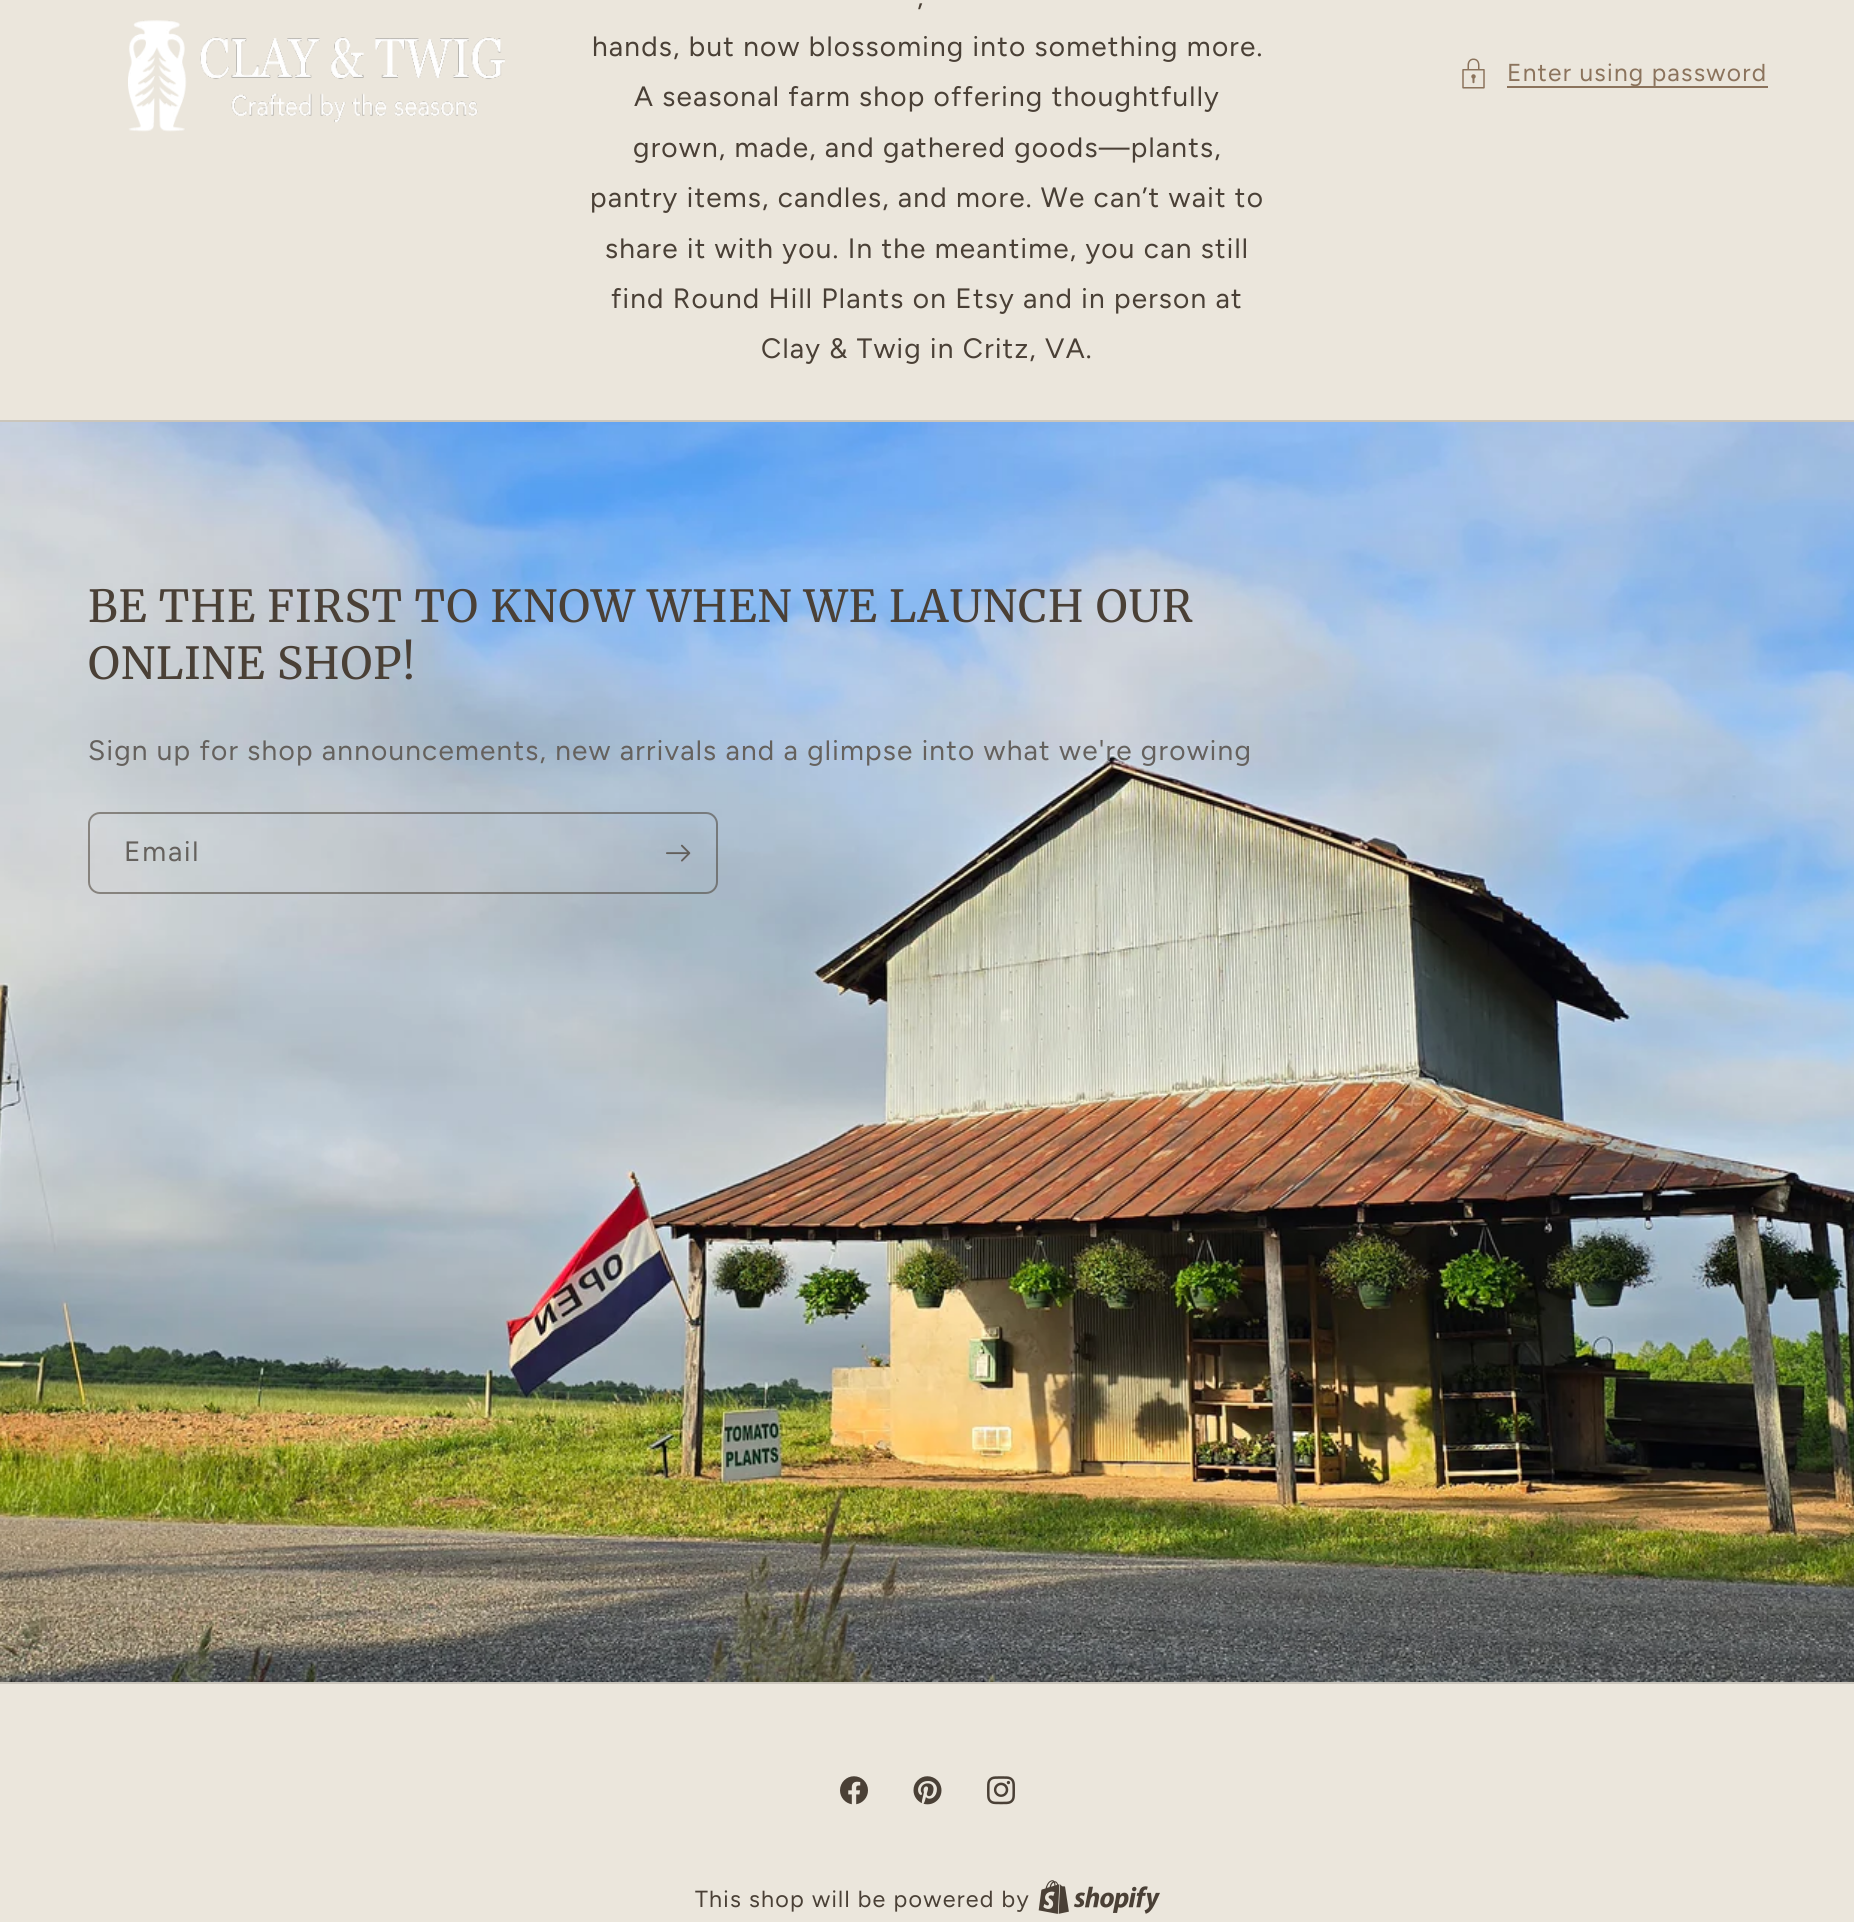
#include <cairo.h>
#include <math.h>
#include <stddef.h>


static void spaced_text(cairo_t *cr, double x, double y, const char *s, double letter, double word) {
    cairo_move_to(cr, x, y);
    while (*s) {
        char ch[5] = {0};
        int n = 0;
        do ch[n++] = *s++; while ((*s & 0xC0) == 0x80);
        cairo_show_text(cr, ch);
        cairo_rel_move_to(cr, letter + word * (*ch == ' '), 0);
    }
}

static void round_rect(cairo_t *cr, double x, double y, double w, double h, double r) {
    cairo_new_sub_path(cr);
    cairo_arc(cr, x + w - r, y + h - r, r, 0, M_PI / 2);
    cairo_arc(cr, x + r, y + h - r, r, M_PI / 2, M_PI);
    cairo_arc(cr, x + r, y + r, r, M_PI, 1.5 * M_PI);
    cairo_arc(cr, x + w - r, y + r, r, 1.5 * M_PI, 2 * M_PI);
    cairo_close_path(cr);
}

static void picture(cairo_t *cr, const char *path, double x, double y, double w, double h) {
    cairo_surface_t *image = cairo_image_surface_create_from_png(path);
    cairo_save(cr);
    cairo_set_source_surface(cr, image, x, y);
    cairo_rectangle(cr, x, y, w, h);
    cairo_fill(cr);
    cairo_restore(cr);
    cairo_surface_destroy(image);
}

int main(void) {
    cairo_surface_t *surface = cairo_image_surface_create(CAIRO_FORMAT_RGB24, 1854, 1922);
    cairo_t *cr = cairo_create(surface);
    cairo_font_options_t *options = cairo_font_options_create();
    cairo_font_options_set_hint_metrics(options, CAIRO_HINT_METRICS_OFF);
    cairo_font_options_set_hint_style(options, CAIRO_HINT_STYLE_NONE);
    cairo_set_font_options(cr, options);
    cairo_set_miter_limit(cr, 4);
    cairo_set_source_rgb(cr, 0.918, 0.902, 0.863);
    cairo_paint(cr);
    picture(cr, "img1.png", 128, 20, 377, 112);
    cairo_select_font_face(cr, "Figtree", CAIRO_FONT_SLANT_NORMAL, CAIRO_FONT_WEIGHT_NORMAL);
    cairo_set_font_size(cr, 28);
    cairo_set_source_rgb(cr, 0.29, 0.251, 0.212);
    spaced_text(cr, 917, 6, ",", 1.22, 0);
    spaced_text(cr, 592, 56, "hands, but now blossoming into something more.", 1.22, 0);
    spaced_text(cr, 634, 106, "A seasonal farm shop offering thoughtfully", 1.22, 0);
    spaced_text(cr, 633, 157, "grown, made, and gathered goods—plants,", 1.22, 0);
    spaced_text(cr, 590, 207, "pantry items, candles, and more. We can’t wait to", 1.22, 0);
    spaced_text(cr, 605, 258, "share it with you. In the meantime, you can still", 1.22, 0);
    spaced_text(cr, 611, 308, "find Round Hill Plants on Etsy and in person at", 1.22, 0);
    spaced_text(cr, 761, 358, "Clay & Twig in Critz, VA.", 1.22, 0);
    picture(cr, "img2.png", 1462, 58, 23, 31);
    cairo_set_source_rgb(cr, 0.545, 0.451, 0.361);
    cairo_rectangle(cr, 1507, 86, 261, 2);
    cairo_fill(cr);
    cairo_set_font_size(cr, 24.5);
    spaced_text(cr, 1507, 81, "Enter using password", 1.22, 0);
    cairo_set_source_rgb(cr, 0.792, 0.773, 0.733);
    cairo_rectangle(cr, 0, 420, 1854, 2);
    cairo_fill(cr);
    picture(cr, "img3.png", 0, 422, 1854, 1260);
    cairo_select_font_face(cr, "Merriweather", CAIRO_FONT_SLANT_NORMAL, CAIRO_FONT_WEIGHT_NORMAL);
    cairo_set_font_size(cr, 44.1);
    cairo_set_source_rgb(cr, 0.29, 0.251, 0.212);
    spaced_text(cr, 88, 622, "BE THE FIRST TO KNOW WHEN WE LAUNCH OUR", 1.1, 0);
    spaced_text(cr, 88, 679, "ONLINE SHOP!", 1.1, 0);
    cairo_select_font_face(cr, "Figtree", CAIRO_FONT_SLANT_NORMAL, CAIRO_FONT_WEIGHT_NORMAL);
    cairo_set_font_size(cr, 28);
    cairo_set_source_rgb(cr, 0.396, 0.38, 0.365);
    spaced_text(cr, 88, 760, "Sign up for shop announcements, new arrivals and a glimpse into what we're growing", 1.22, 0);
    round_rect(cr, 89, 813, 628, 80, 11);
    cairo_set_source_rgba(cr, 0.29, 0.251, 0.212, 0.55);
    cairo_stroke(cr);
    cairo_set_source_rgb(cr, 0.396, 0.38, 0.365);
    spaced_text(cr, 124, 861, "Email", 1.75, 0);
    picture(cr, "img4.png", 666, 844, 25, 18);
    cairo_set_source_rgb(cr, 0.792, 0.773, 0.733);
    cairo_rectangle(cr, 0, 1682, 1854, 2);
    cairo_fill(cr);
    picture(cr, "img5.png", 840, 1776, 28, 29);
    picture(cr, "img6.png", 913, 1776, 29, 29);
    picture(cr, "img7.png", 987, 1776, 28, 29);
    cairo_set_font_size(cr, 23.3);
    cairo_set_source_rgb(cr, 0.29, 0.251, 0.212);
    spaced_text(cr, 695, 1907, "This shop will be powered by", 1.22, 0);
    picture(cr, "img8.png", 1038, 1880, 122, 34);
    cairo_surface_write_to_png(surface, "page.png");
    cairo_font_options_destroy(options);
    cairo_destroy(cr);
    cairo_surface_destroy(surface);
    return 0;
}
